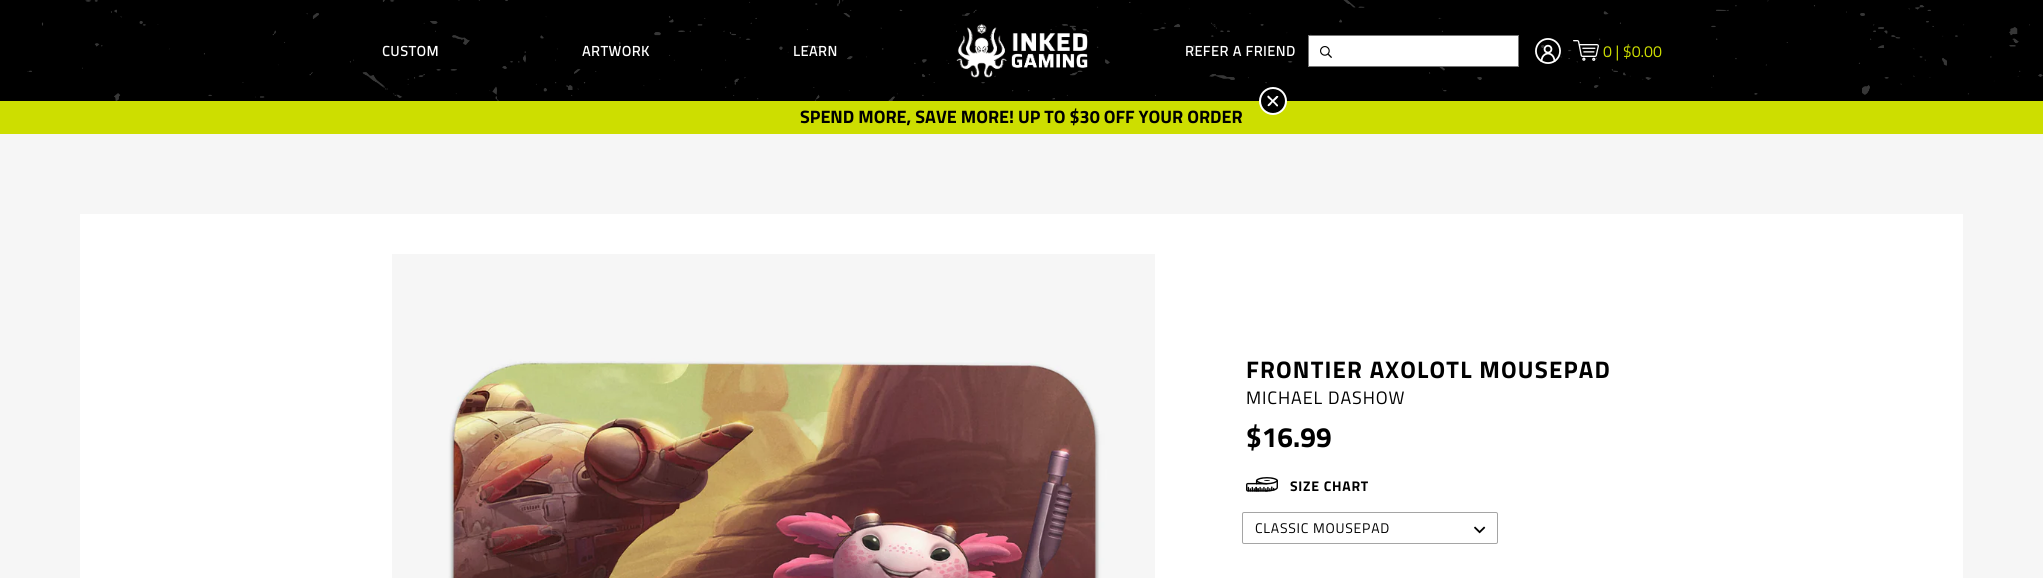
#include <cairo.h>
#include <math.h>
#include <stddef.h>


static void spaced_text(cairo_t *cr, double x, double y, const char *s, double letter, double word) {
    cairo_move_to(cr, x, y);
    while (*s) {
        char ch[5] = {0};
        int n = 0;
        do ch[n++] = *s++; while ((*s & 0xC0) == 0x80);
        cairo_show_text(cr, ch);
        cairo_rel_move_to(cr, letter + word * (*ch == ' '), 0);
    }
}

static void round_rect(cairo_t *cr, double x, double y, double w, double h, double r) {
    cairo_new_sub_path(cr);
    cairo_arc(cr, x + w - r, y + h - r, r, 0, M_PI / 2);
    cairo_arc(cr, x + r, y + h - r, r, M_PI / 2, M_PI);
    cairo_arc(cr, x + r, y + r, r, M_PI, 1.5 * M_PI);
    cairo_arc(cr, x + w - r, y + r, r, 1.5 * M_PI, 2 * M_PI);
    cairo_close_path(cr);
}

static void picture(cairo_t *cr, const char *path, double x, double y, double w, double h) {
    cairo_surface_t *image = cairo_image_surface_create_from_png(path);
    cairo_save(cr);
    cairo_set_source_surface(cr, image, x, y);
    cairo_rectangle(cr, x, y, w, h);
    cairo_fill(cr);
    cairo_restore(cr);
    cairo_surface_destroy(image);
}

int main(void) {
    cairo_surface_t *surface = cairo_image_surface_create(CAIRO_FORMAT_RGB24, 2043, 578);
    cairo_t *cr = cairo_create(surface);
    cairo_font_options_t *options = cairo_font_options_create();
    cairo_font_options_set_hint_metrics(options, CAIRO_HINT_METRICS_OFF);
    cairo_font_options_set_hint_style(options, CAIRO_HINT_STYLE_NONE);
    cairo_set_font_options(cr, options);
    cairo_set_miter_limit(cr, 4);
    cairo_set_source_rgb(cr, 1, 1, 1);
    cairo_paint(cr);
    cairo_set_source_rgb(cr, 0, 0, 0);
    cairo_rectangle(cr, 0, 0, 2043, 101);
    cairo_fill(cr);
    picture(cr, "img1.png", 27, 0, 2016, 101);
    cairo_select_font_face(cr, "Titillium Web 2", CAIRO_FONT_SLANT_NORMAL, CAIRO_FONT_WEIGHT_BOLD);
    cairo_set_font_size(cr, 14);
    cairo_set_source_rgb(cr, 1, 1, 1);
    spaced_text(cr, 382, 56, "CUSTOM", 0.75, 0);
    spaced_text(cr, 582, 56, "ARTWORK", 0.75, 0);
    spaced_text(cr, 793, 56, "LEARN", 0.75, 0);
    picture(cr, "img2.png", 956, 23, 132, 55);
    spaced_text(cr, 1185, 56, "REFER A FRIEND", 0.75, 0);
    cairo_rectangle(cr, 1308.5, 35.5, 210, 31);
    cairo_fill_preserve(cr);
    cairo_set_source_rgb(cr, 0.463, 0.463, 0.463);
    cairo_set_line_width(cr, 1);
    cairo_stroke(cr);
    picture(cr, "img3.png", 1320, 46, 12, 12);
    picture(cr, "img4.png", 1535, 38, 26, 26);
    picture(cr, "img5.png", 1573, 40, 26, 21);
    cairo_select_font_face(cr, "Titillium Web", CAIRO_FONT_SLANT_NORMAL, CAIRO_FONT_WEIGHT_NORMAL);
    cairo_set_font_size(cr, 16);
    cairo_set_source_rgb(cr, 0.804, 0.871, 0);
    cairo_move_to(cr, 1603, 57);
    cairo_show_text(cr, "0 | $0.00");
    cairo_rectangle(cr, 0, 101, 2043, 33);
    cairo_fill(cr);
    cairo_set_source_rgb(cr, 0, 0, 0);
    cairo_arc(cr, 1273, 101, 13, 0, 2 * M_PI);
    cairo_fill_preserve(cr);
    cairo_set_source_rgb(cr, 1, 1, 1);
    cairo_set_line_width(cr, 2);
    cairo_stroke(cr);
    cairo_new_path(cr);
    cairo_move_to(cr, 1269, 96);
    cairo_line_to(cr, 1278, 105);
    cairo_line_to(cr, 1278, 106);
    cairo_curve_to(cr, 1277, 107.5, 1275.5, 105, 1275, 104.5);
    cairo_line_to(cr, 1270.5, 100);
    cairo_curve_to(cr, 1270, 99.5, 1266.5, 97.5, 1267.5, 96);
    cairo_curve_to(cr, 1268, 95.5, 1268.5, 95.5, 1269, 96);
    cairo_close_path(cr);
    cairo_fill(cr);
    cairo_new_path(cr);
    cairo_move_to(cr, 1268, 104.5);
    cairo_line_to(cr, 1276.5, 96);
    cairo_line_to(cr, 1278, 96);
    cairo_curve_to(cr, 1279, 96.5, 1277, 98.5, 1276.5, 99);
    cairo_line_to(cr, 1272, 103);
    cairo_curve_to(cr, 1271.5, 104, 1269, 107, 1268, 106);
    cairo_curve_to(cr, 1267.5, 106, 1267.5, 105, 1268, 104.5);
    cairo_close_path(cr);
    cairo_fill(cr);
    cairo_select_font_face(cr, "Titillium Web", CAIRO_FONT_SLANT_NORMAL, CAIRO_FONT_WEIGHT_BOLD);
    cairo_set_font_size(cr, 18);
    cairo_set_source_rgb(cr, 0, 0, 0);
    cairo_move_to(cr, 800, 123);
    cairo_show_text(cr, "SPEND MORE, SAVE MORE! UP TO $30 OFF YOUR ORDER");
    cairo_rectangle(cr, 40, 174, 1963, 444);
    cairo_set_source_rgb(cr, 0.961, 0.961, 0.961);
    cairo_set_line_width(cr, 80);
    cairo_stroke(cr);
    picture(cr, "img6.png", 392, 254, 763, 324);
    cairo_set_font_size(cr, 24);
    cairo_set_source_rgb(cr, 0, 0, 0);
    spaced_text(cr, 1246, 378, "FRONTIER AXOLOTL MOUSEPAD", 1.2, 0);
    cairo_select_font_face(cr, "Titillium Web", CAIRO_FONT_SLANT_NORMAL, CAIRO_FONT_WEIGHT_NORMAL);
    cairo_set_font_size(cr, 18);
    spaced_text(cr, 1246, 404, "MICHAEL DASHOW", 0.9, 0);
    cairo_select_font_face(cr, "Titillium Web", CAIRO_FONT_SLANT_NORMAL, CAIRO_FONT_WEIGHT_BOLD);
    cairo_set_font_size(cr, 28);
    cairo_move_to(cr, 1246, 447);
    cairo_show_text(cr, "$16.99");
    picture(cr, "img7.png", 1246, 477, 32, 15);
    cairo_set_font_size(cr, 14);
    spaced_text(cr, 1290, 491, "SIZE CHART", 0.75, 0);
    round_rect(cr, 1242.5, 512.5, 255, 31, 1.5);
    cairo_set_source_rgb(cr, 0.647, 0.647, 0.647);
    cairo_set_line_width(cr, 1);
    cairo_stroke(cr);
    cairo_select_font_face(cr, "Titillium Web", CAIRO_FONT_SLANT_NORMAL, CAIRO_FONT_WEIGHT_NORMAL);
    cairo_set_source_rgb(cr, 0, 0, 0);
    spaced_text(cr, 1255, 533, "CLASSIC MOUSEPAD", 0.75, 0);
    picture(cr, "img8.png", 1474, 526, 12, 8);
    cairo_surface_write_to_png(surface, "page.png");
    cairo_font_options_destroy(options);
    cairo_destroy(cr);
    cairo_surface_destroy(surface);
    return 0;
}
